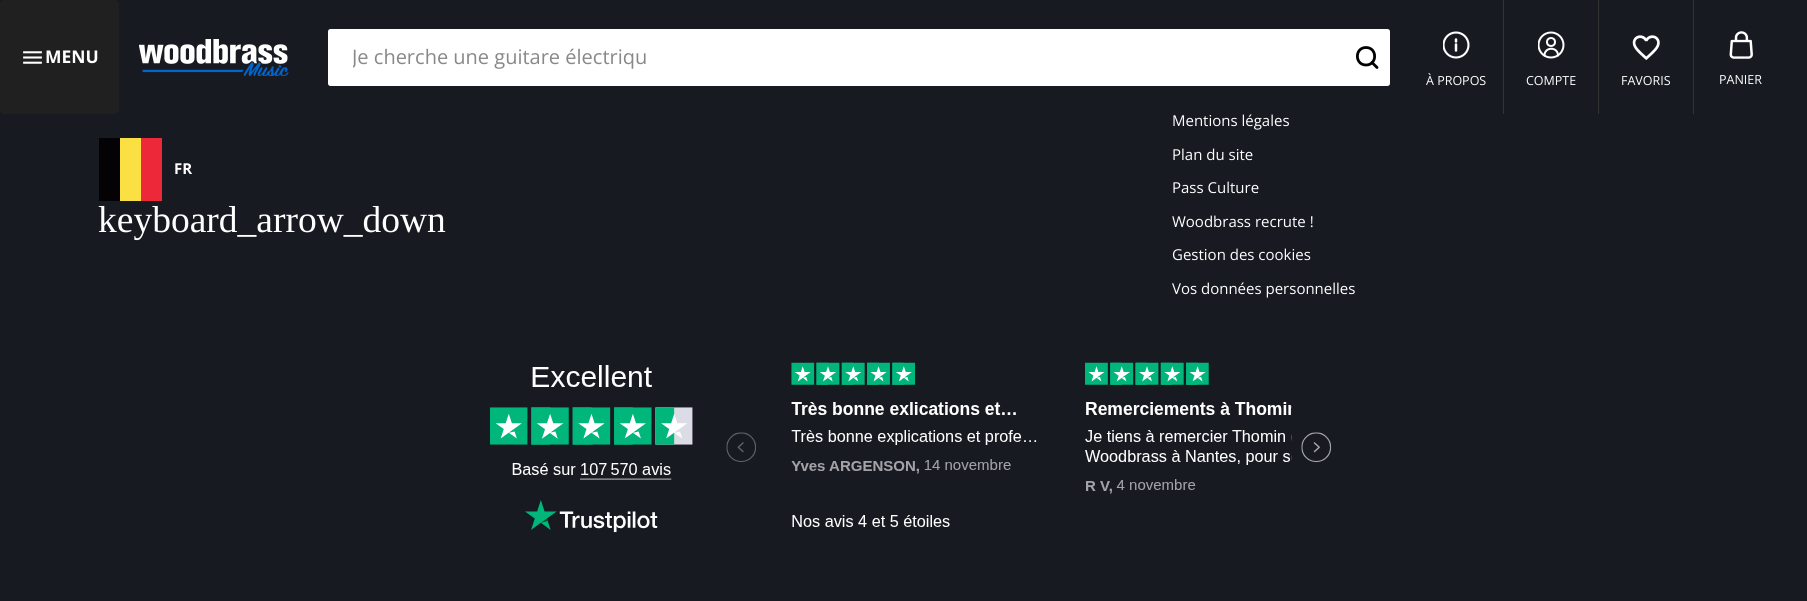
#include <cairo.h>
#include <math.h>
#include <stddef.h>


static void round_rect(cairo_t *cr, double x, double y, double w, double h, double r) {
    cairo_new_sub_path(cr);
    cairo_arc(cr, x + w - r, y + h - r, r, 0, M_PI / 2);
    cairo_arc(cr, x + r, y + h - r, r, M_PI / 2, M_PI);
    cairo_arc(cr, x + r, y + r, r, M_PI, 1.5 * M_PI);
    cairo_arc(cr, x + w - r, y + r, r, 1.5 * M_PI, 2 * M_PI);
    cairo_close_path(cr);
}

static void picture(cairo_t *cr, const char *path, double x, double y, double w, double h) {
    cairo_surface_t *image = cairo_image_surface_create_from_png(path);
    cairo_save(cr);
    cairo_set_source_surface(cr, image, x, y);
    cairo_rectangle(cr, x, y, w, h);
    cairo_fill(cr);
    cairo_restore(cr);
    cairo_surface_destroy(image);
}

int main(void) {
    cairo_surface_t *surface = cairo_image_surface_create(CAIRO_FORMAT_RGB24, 1807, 601);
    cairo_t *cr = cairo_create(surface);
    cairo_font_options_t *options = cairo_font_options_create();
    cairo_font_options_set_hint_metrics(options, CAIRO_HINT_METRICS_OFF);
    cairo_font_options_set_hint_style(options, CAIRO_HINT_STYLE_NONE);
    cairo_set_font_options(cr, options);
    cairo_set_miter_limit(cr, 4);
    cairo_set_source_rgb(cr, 0.094, 0.102, 0.133);
    cairo_paint(cr);
    cairo_set_source_rgb(cr, 0.125, 0.125, 0.125);
    round_rect(cr, 0, 0, 119, 114, 5);
    cairo_fill(cr);
    picture(cr, "img1.png", 23, 51, 19, 13);
    cairo_select_font_face(cr, "Open Sans", CAIRO_FONT_SLANT_NORMAL, CAIRO_FONT_WEIGHT_BOLD);
    cairo_set_font_size(cr, 17.5);
    cairo_set_source_rgb(cr, 1, 1, 1);
    cairo_move_to(cr, 45, 63);
    cairo_show_text(cr, "MENU");
    picture(cr, "img2.png", 139, 39, 150, 37);
    round_rect(cr, 328, 29, 1062, 57, 2.5);
    cairo_fill(cr);
    cairo_save(cr);
    cairo_rectangle(cr, 353, 44, 948, 27);
    cairo_clip(cr);
    cairo_select_font_face(cr, "Open Sans", CAIRO_FONT_SLANT_NORMAL, CAIRO_FONT_WEIGHT_NORMAL);
    cairo_set_font_size(cr, 20);
    cairo_set_source_rgb(cr, 0.533, 0.533, 0.533);
    cairo_move_to(cr, 352, 64);
    cairo_show_text(cr, "Je cherche une guitare électriqu");
    cairo_restore(cr);
    cairo_new_path(cr);
    cairo_move_to(cr, 1366, 47.5);
    cairo_curve_to(cr, 1354.5, 47.5, 1354.5, 65, 1366, 65);
    cairo_curve_to(cr, 1377.5, 65, 1377.5, 47.5, 1366, 47.5);
    cairo_close_path(cr);
    cairo_set_source_rgb(cr, 0, 0, 0);
    cairo_set_line_width(cr, 2.8);
    cairo_stroke(cr);
    cairo_new_path(cr);
    cairo_move_to(cr, 1372, 62.5);
    cairo_line_to(cr, 1377, 67.5);
    cairo_set_line_cap(cr, CAIRO_LINE_CAP_ROUND);
    cairo_stroke(cr);
    cairo_save(cr);
    cairo_rectangle(cr, 1443, 31, 27, 28);
    cairo_clip(cr);
    cairo_arc(cr, 1456, 45, 12.5, 0, 2 * M_PI);
    cairo_set_source_rgb(cr, 1, 1, 1);
    cairo_set_line_width(cr, 2.1);
    cairo_set_line_cap(cr, CAIRO_LINE_CAP_BUTT);
    cairo_stroke(cr);
    cairo_restore(cr);
    cairo_new_path(cr);
    cairo_move_to(cr, 1456, 50.5);
    cairo_line_to(cr, 1456, 44.5);
    cairo_move_to(cr, 1456, 41.5);
    cairo_line_to(cr, 1456, 39.5);
    cairo_set_source_rgb(cr, 1, 1, 1);
    cairo_set_line_width(cr, 2.5);
    cairo_stroke(cr);
    cairo_select_font_face(cr, "Open Sans", CAIRO_FONT_SLANT_NORMAL, CAIRO_FONT_WEIGHT_NORMAL);
    cairo_set_font_size(cr, 12.5);
    cairo_move_to(cr, 1426, 85);
    cairo_show_text(cr, "À PROPOS");
    cairo_set_source_rgb(cr, 0.2, 0.2, 0.2);
    cairo_rectangle(cr, 1503, 0, 1, 114);
    cairo_fill(cr);
    cairo_arc(cr, 1551, 42, 4, 0, 2 * M_PI);
    cairo_set_source_rgb(cr, 1, 1, 1);
    cairo_set_line_width(cr, 2);
    cairo_set_line_cap(cr, CAIRO_LINE_CAP_BUTT);
    cairo_stroke(cr);
    cairo_new_path(cr);
    cairo_move_to(cr, 1558, 55.5);
    cairo_curve_to(cr, 1558, 46.5, 1544.5, 46.5, 1544.5, 55.5);
    cairo_set_line_cap(cr, CAIRO_LINE_CAP_ROUND);
    cairo_stroke(cr);
    cairo_save(cr);
    cairo_rectangle(cr, 1538, 31, 27, 28);
    cairo_clip(cr);
    cairo_arc(cr, 1551, 45, 12.5, 0, 2 * M_PI);
    cairo_set_line_cap(cr, CAIRO_LINE_CAP_BUTT);
    cairo_stroke(cr);
    cairo_restore(cr);
    cairo_move_to(cr, 1526, 85);
    cairo_show_text(cr, "COMPTE");
    cairo_set_source_rgb(cr, 0.2, 0.2, 0.2);
    cairo_rectangle(cr, 1598, 0, 1, 114);
    cairo_fill(cr);
    picture(cr, "img3.png", 1632, 35, 28, 25);
    cairo_set_source_rgb(cr, 1, 1, 1);
    cairo_move_to(cr, 1621, 85);
    cairo_show_text(cr, "FAVORIS");
    cairo_set_source_rgb(cr, 0.2, 0.2, 0.2);
    cairo_rectangle(cr, 1693, 0, 1, 114);
    cairo_fill(cr);
    picture(cr, "img4.png", 1729, 31, 24, 28);
    cairo_set_source_rgb(cr, 1, 1, 1);
    cairo_move_to(cr, 1719, 84);
    cairo_show_text(cr, "PANIER");
    cairo_set_source_rgb(cr, 0.016, 0.008, 0.02);
    cairo_rectangle(cr, 99, 138, 21, 63);
    cairo_fill(cr);
    cairo_set_source_rgb(cr, 0.98, 0.878, 0.259);
    cairo_rectangle(cr, 120, 138, 21, 63);
    cairo_fill(cr);
    cairo_set_source_rgb(cr, 0.929, 0.161, 0.224);
    cairo_rectangle(cr, 141, 138, 21, 63);
    cairo_fill(cr);
    cairo_select_font_face(cr, "Open Sans", CAIRO_FONT_SLANT_NORMAL, CAIRO_FONT_WEIGHT_BOLD);
    cairo_set_font_size(cr, 15);
    cairo_set_source_rgb(cr, 1, 1, 1);
    cairo_move_to(cr, 174, 174);
    cairo_show_text(cr, "FR");
    cairo_select_font_face(cr, "Liberation Serif", CAIRO_FONT_SLANT_NORMAL, CAIRO_FONT_WEIGHT_NORMAL);
    cairo_set_font_size(cr, 37.5);
    cairo_move_to(cr, 98, 232);
    cairo_show_text(cr, "keyboard_arrow_down");
    cairo_select_font_face(cr, "Open Sans", CAIRO_FONT_SLANT_NORMAL, CAIRO_FONT_WEIGHT_NORMAL);
    cairo_set_font_size(cr, 15);
    cairo_move_to(cr, 1172, 126);
    cairo_show_text(cr, "Mentions légales");
    cairo_move_to(cr, 1172, 160);
    cairo_show_text(cr, "Plan du site");
    cairo_move_to(cr, 1172, 193);
    cairo_show_text(cr, "Pass Culture");
    cairo_move_to(cr, 1172, 227);
    cairo_show_text(cr, "Woodbrass recrute !");
    cairo_move_to(cr, 1172, 260);
    cairo_show_text(cr, "Gestion des cookies");
    cairo_move_to(cr, 1172, 294);
    cairo_show_text(cr, "Vos données personnelles");
    picture(cr, "img5.png", 490, 362, 842, 171);
    cairo_surface_write_to_png(surface, "page.png");
    cairo_font_options_destroy(options);
    cairo_destroy(cr);
    cairo_surface_destroy(surface);
    return 0;
}
